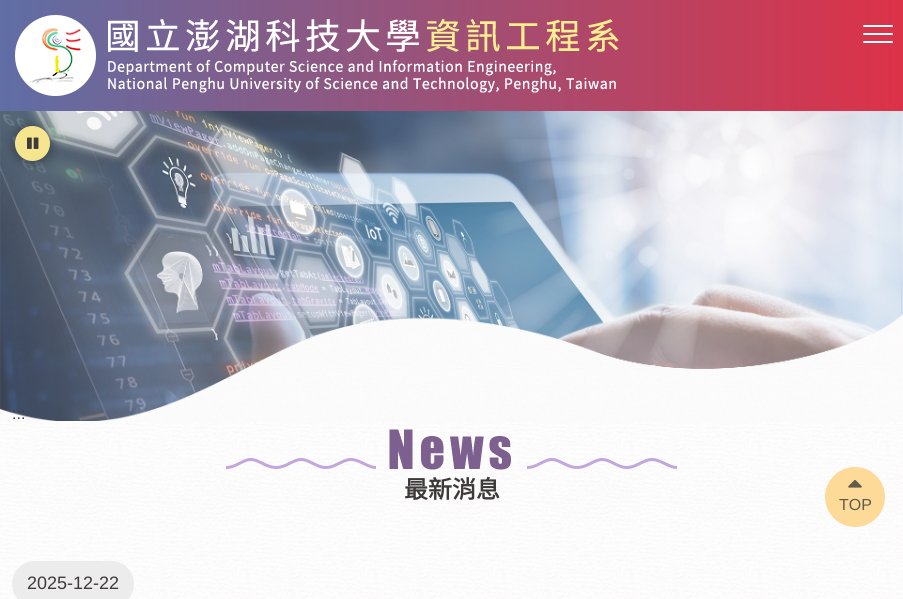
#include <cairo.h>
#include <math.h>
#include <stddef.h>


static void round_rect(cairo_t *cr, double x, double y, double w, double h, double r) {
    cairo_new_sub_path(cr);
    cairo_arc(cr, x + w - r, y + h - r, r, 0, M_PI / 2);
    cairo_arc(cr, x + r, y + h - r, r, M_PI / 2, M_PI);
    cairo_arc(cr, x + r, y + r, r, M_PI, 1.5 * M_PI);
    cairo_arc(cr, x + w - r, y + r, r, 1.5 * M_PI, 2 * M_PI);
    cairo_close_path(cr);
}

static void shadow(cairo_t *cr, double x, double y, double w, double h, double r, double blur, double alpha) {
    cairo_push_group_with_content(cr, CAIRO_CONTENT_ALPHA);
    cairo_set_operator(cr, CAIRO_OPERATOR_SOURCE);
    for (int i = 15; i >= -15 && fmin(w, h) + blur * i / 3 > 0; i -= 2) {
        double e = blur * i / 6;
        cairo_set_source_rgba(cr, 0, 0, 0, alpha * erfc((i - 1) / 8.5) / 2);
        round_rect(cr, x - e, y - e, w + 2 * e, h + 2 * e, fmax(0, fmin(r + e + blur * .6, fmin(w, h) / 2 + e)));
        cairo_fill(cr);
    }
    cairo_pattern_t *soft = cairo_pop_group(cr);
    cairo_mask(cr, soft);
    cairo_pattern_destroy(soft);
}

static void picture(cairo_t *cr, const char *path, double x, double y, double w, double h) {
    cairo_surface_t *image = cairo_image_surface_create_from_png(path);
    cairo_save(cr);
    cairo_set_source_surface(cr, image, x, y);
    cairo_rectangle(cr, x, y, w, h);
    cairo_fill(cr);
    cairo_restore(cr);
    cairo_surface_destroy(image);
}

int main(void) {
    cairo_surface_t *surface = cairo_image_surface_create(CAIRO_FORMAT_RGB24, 903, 599);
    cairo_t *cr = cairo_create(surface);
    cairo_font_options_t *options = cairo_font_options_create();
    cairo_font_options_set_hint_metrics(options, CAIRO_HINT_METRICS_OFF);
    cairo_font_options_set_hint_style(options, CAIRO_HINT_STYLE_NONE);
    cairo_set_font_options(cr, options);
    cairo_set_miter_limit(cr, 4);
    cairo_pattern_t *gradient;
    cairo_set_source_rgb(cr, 1, 1, 1);
    cairo_paint(cr);
    picture(cr, "img1.png", 0, 111, 903, 488);
    gradient = cairo_pattern_create_linear(0, 56, 903, 55);
    cairo_pattern_add_color_stop_rgba(gradient, 0, 0.373, 0.431, 0.647, 1);
    cairo_pattern_add_color_stop_rgba(gradient, 1, 0.863, 0.196, 0.282, 1);
    cairo_set_source(cr, gradient);
    cairo_pattern_destroy(gradient);
    cairo_rectangle(cr, 0, 0, 903, 111);
    cairo_fill(cr);
    picture(cr, "img2.png", 15, 15, 604, 81);
    cairo_set_source_rgb(cr, 1, 1, 1);
    round_rect(cr, 863, 25, 30, 2, 1);
    cairo_fill(cr);
    round_rect(cr, 863, 33, 30, 2, 1);
    cairo_fill(cr);
    round_rect(cr, 863, 41, 30, 2, 1);
    cairo_fill(cr);
    picture(cr, "img4.png", 0, 111, 903, 310);
    cairo_set_source_rgb(cr, 0, 0, 0);
    shadow(cr, 13, 124, 39, 39, 19.5, 5.5, 0.32);
    cairo_set_source_rgb(cr, 0.957, 0.898, 0.557);
    cairo_arc(cr, 32.5, 143.5, 17.5, 0, 2 * M_PI);
    cairo_fill(cr);
    picture(cr, "img3.png", 27, 137, 12, 12);
    picture(cr, "img5.png", 0, 314, 903, 108);
    cairo_select_font_face(cr, "Liberation Sans", CAIRO_FONT_SLANT_NORMAL, CAIRO_FONT_WEIGHT_NORMAL);
    cairo_set_font_size(cr, 16);
    cairo_set_source_rgb(cr, 0.243, 0.227, 0.224);
    cairo_move_to(cr, 12, 419);
    cairo_show_text(cr, ":::");
    picture(cr, "img6.png", 226, 429, 451, 41);
    cairo_select_font_face(cr, "Noto Sans CJK TC", CAIRO_FONT_SLANT_NORMAL, CAIRO_FONT_WEIGHT_BOLD);
    cairo_set_font_size(cr, 24);
    cairo_move_to(cr, 404, 498);
    cairo_show_text(cr, "最新消息");
    cairo_set_source_rgb(cr, 0.922, 0.922, 0.925);
    round_rect(cr, 12, 561, 122, 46, 23);
    cairo_fill(cr);
    cairo_select_font_face(cr, "Liberation Sans", CAIRO_FONT_SLANT_NORMAL, CAIRO_FONT_WEIGHT_NORMAL);
    cairo_set_font_size(cr, 18);
    cairo_set_source_rgb(cr, 0.243, 0.227, 0.224);
    cairo_move_to(cr, 27, 589);
    cairo_show_text(cr, "2025-12-22");
    cairo_set_source_rgba(cr, 0.996, 0.824, 0.502, 0.8);
    cairo_new_path(cr);
    cairo_arc(cr, 855, 497, 30, 0, 2 * M_PI);
    cairo_fill(cr);
    picture(cr, "img7.png", 848, 480, 14, 8);
    cairo_set_font_size(cr, 16);
    cairo_set_source_rgb(cr, 0.392, 0.353, 0.298);
    cairo_move_to(cr, 839, 510);
    cairo_show_text(cr, "TOP");
    cairo_surface_write_to_png(surface, "page.png");
    cairo_font_options_destroy(options);
    cairo_destroy(cr);
    cairo_surface_destroy(surface);
    return 0;
}
